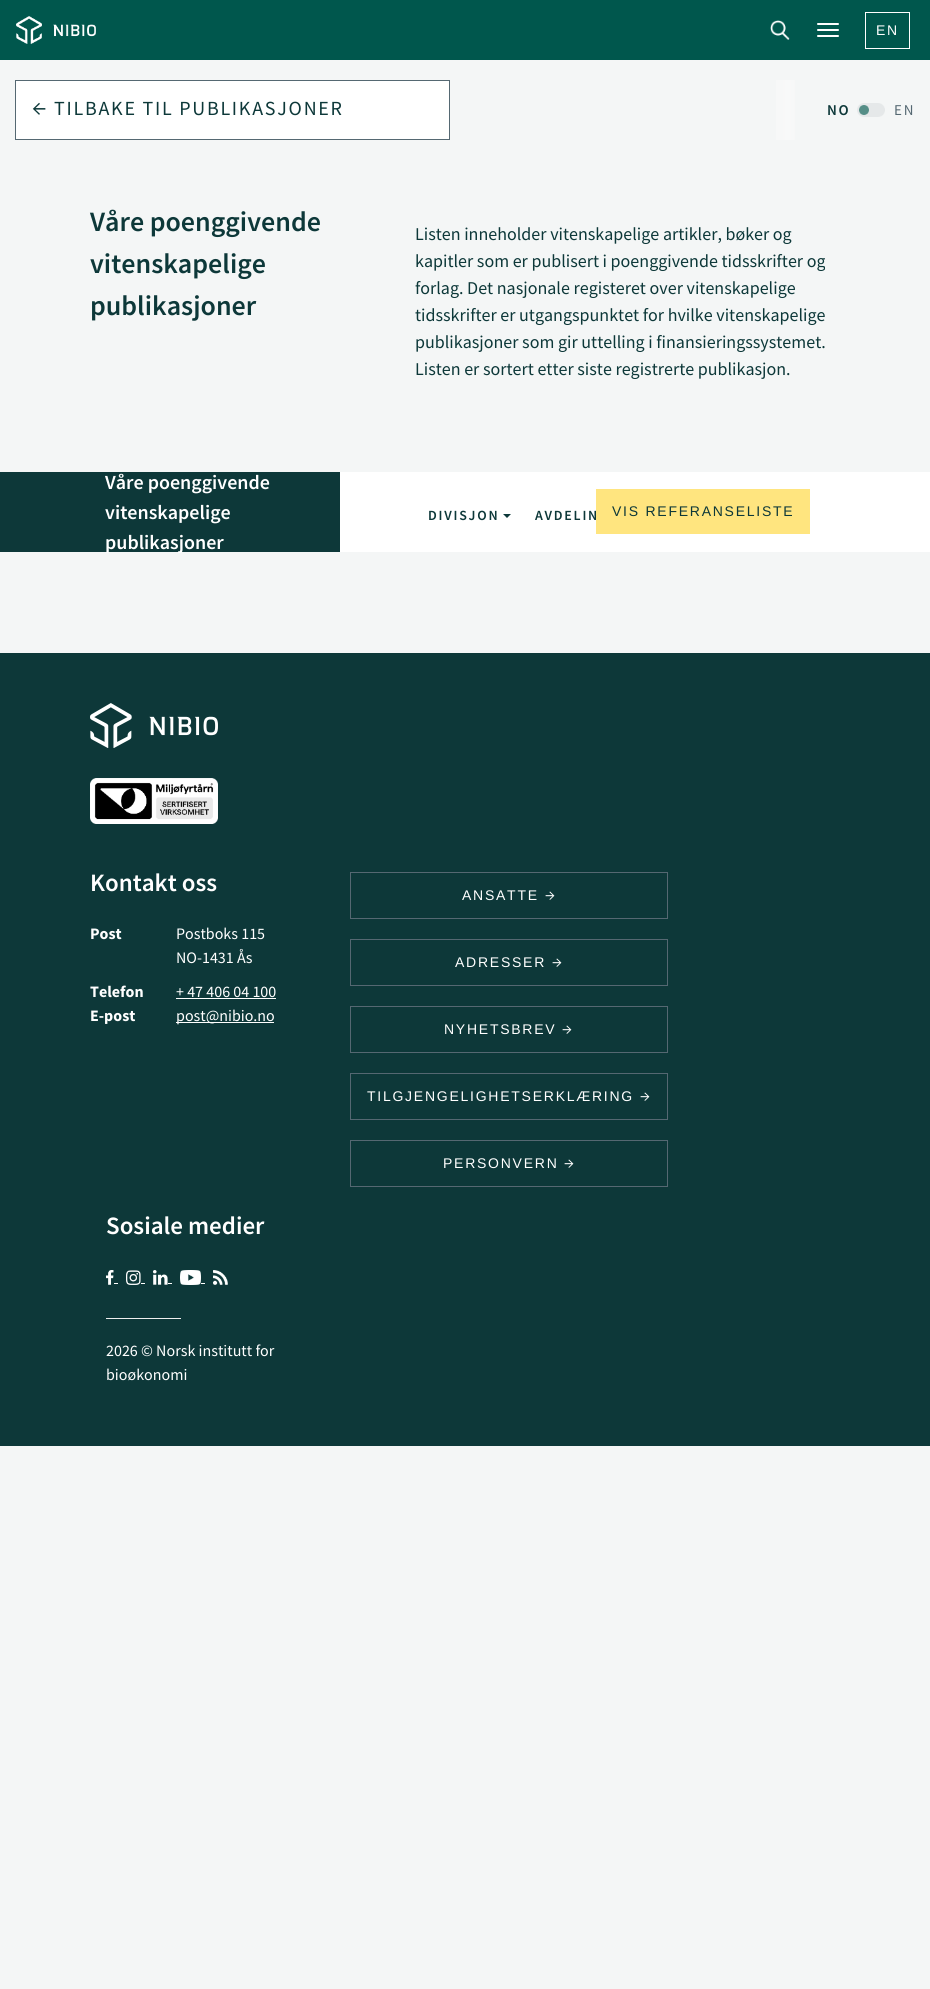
#include <cairo.h>
#include <math.h>
#include <stddef.h>


static void spaced_text(cairo_t *cr, double x, double y, const char *s, double letter, double word) {
    cairo_move_to(cr, x, y);
    while (*s) {
        char ch[5] = {0};
        int n = 0;
        do ch[n++] = *s++; while ((*s & 0xC0) == 0x80);
        cairo_show_text(cr, ch);
        cairo_rel_move_to(cr, letter + word * (*ch == ' '), 0);
    }
}

static void round_rect(cairo_t *cr, double x, double y, double w, double h, double r) {
    cairo_new_sub_path(cr);
    cairo_arc(cr, x + w - r, y + h - r, r, 0, M_PI / 2);
    cairo_arc(cr, x + r, y + h - r, r, M_PI / 2, M_PI);
    cairo_arc(cr, x + r, y + r, r, M_PI, 1.5 * M_PI);
    cairo_arc(cr, x + w - r, y + r, r, 1.5 * M_PI, 2 * M_PI);
    cairo_close_path(cr);
}

static void picture(cairo_t *cr, const char *path, double x, double y, double w, double h) {
    cairo_surface_t *image = cairo_image_surface_create_from_png(path);
    cairo_save(cr);
    cairo_set_source_surface(cr, image, x, y);
    cairo_rectangle(cr, x, y, w, h);
    cairo_fill(cr);
    cairo_restore(cr);
    cairo_surface_destroy(image);
}

int main(void) {
    cairo_surface_t *surface = cairo_image_surface_create(CAIRO_FORMAT_RGB24, 930, 1989);
    cairo_t *cr = cairo_create(surface);
    cairo_font_options_t *options = cairo_font_options_create();
    cairo_font_options_set_hint_metrics(options, CAIRO_HINT_METRICS_OFF);
    cairo_font_options_set_hint_style(options, CAIRO_HINT_STYLE_NONE);
    cairo_set_font_options(cr, options);
    cairo_set_miter_limit(cr, 4);
    cairo_pattern_t *gradient;
    cairo_set_source_rgb(cr, 0.957, 0.961, 0.961);
    cairo_paint(cr);
    cairo_set_source_rgb(cr, 0, 0.341, 0.302);
    cairo_rectangle(cr, 0, 0, 930, 60);
    cairo_fill(cr);
    picture(cr, "img1.png", 16, 16, 80, 28);
    picture(cr, "img2.png", 770, 20, 20, 20);
    cairo_set_source_rgb(cr, 1, 1, 1);
    round_rect(cr, 817, 23, 22, 2, 1);
    cairo_fill(cr);
    round_rect(cr, 817, 29, 22, 2, 1);
    cairo_fill(cr);
    round_rect(cr, 817, 35, 22, 2, 1);
    cairo_fill(cr);
    cairo_rectangle(cr, 865.5, 12.5, 44, 36);
    cairo_set_line_width(cr, 1);
    cairo_stroke(cr);
    cairo_select_font_face(cr, "Liberation Sans", CAIRO_FONT_SLANT_NORMAL, CAIRO_FONT_WEIGHT_NORMAL);
    cairo_set_font_size(cr, 14);
    spaced_text(cr, 876, 35, "EN", 1.75, 0);
    cairo_rectangle(cr, 15.5, 80.5, 434, 59);
    cairo_fill_preserve(cr);
    cairo_set_source_rgb(cr, 0.333, 0.408, 0.447);
    cairo_stroke(cr);
    picture(cr, "img3.png", 32, 102, 14, 13);
    cairo_select_font_face(cr, "Source Sans Pro", CAIRO_FONT_SLANT_NORMAL, CAIRO_FONT_WEIGHT_NORMAL);
    cairo_set_font_size(cr, 20);
    cairo_set_source_rgb(cr, 0.051, 0.22, 0.224);
    spaced_text(cr, 54, 115, "TILBAKE TIL PUBLIKASJONER", 1.75, 0);
    gradient = cairo_pattern_create_linear(756, 110, 806, 110);
    cairo_pattern_add_color_stop_rgba(gradient, 0, 0.957, 0.961, 0.961, 1);
    cairo_pattern_add_color_stop_rgba(gradient, 0.64, 0.973, 0.976, 0.976, 1);
    cairo_pattern_add_color_stop_rgba(gradient, 1, 0.957, 0.961, 0.961, 1);
    cairo_set_source(cr, gradient);
    cairo_pattern_destroy(gradient);
    cairo_rectangle(cr, 776, 80, 19, 60);
    cairo_fill(cr);
    picture(cr, "img4.png", 857, 103, 28, 14);
    cairo_select_font_face(cr, "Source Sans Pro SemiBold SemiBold", CAIRO_FONT_SLANT_NORMAL, CAIRO_FONT_WEIGHT_NORMAL);
    cairo_set_font_size(cr, 15);
    cairo_set_source_rgb(cr, 0.051, 0.22, 0.224);
    spaced_text(cr, 827, 115, "NO", 1.75, 0);
    cairo_select_font_face(cr, "Source Sans Pro", CAIRO_FONT_SLANT_NORMAL, CAIRO_FONT_WEIGHT_NORMAL);
    cairo_set_source_rgb(cr, 0.333, 0.408, 0.447);
    spaced_text(cr, 894, 115, "EN", 1.75, 0);
    cairo_select_font_face(cr, "Source Sans Pro SemiBold SemiBold", CAIRO_FONT_SLANT_NORMAL, CAIRO_FONT_WEIGHT_NORMAL);
    cairo_set_font_size(cr, 28);
    cairo_set_source_rgb(cr, 0.051, 0.22, 0.224);
    cairo_move_to(cr, 90, 231);
    cairo_show_text(cr, "Våre poenggivende");
    cairo_move_to(cr, 90, 273);
    cairo_show_text(cr, "vitenskapelige");
    cairo_move_to(cr, 90, 315);
    cairo_show_text(cr, "publikasjoner");
    cairo_select_font_face(cr, "Source Sans Pro", CAIRO_FONT_SLANT_NORMAL, CAIRO_FONT_WEIGHT_NORMAL);
    cairo_set_font_size(cr, 18);
    cairo_move_to(cr, 415, 240);
    cairo_show_text(cr, "Listen inneholder vitenskapelige artikler, bøker og");
    cairo_move_to(cr, 415, 267);
    cairo_show_text(cr, "kapitler som er publisert i poenggivende tidsskrifter og");
    cairo_move_to(cr, 415, 294);
    cairo_show_text(cr, "forlag. Det nasjonale registeret over vitenskapelige");
    cairo_move_to(cr, 415, 321);
    cairo_show_text(cr, "tidsskrifter er utgangspunktet for hvilke vitenskapelige");
    cairo_move_to(cr, 415, 348);
    cairo_show_text(cr, "publikasjoner som gir uttelling i finansieringssystemet.");
    cairo_move_to(cr, 415, 375);
    cairo_show_text(cr, "Listen er sortert etter siste registrerte publikasjon.");
    cairo_rectangle(cr, 0, 472, 340, 80);
    cairo_fill(cr);
    cairo_set_source_rgb(cr, 1, 1, 1);
    cairo_rectangle(cr, 340, 472, 590, 80);
    cairo_fill(cr);
    cairo_select_font_face(cr, "Source Sans Pro SemiBold SemiBold", CAIRO_FONT_SLANT_NORMAL, CAIRO_FONT_WEIGHT_NORMAL);
    cairo_set_font_size(cr, 20);
    cairo_move_to(cr, 105, 489);
    cairo_show_text(cr, "Våre poenggivende");
    cairo_move_to(cr, 105, 519);
    cairo_show_text(cr, "vitenskapelige");
    cairo_move_to(cr, 105, 549);
    cairo_show_text(cr, "publikasjoner");
    cairo_set_font_size(cr, 14);
    cairo_set_source_rgb(cr, 0.051, 0.22, 0.224);
    spaced_text(cr, 428, 520, "DIVISJON", 1.75, 0);
    cairo_new_path(cr);
    cairo_move_to(cr, 503, 514);
    cairo_line_to(cr, 511, 514);
    cairo_line_to(cr, 507, 518);
    cairo_close_path(cr);
    cairo_fill(cr);
    spaced_text(cr, 535, 520, "AVDELIN", 1.75, 0);
    cairo_set_source_rgb(cr, 1, 0.898, 0.498);
    cairo_rectangle(cr, 596, 489, 214, 45);
    cairo_fill(cr);
    cairo_select_font_face(cr, "Liberation Sans", CAIRO_FONT_SLANT_NORMAL, CAIRO_FONT_WEIGHT_NORMAL);
    cairo_set_source_rgb(cr, 0.051, 0.22, 0.224);
    spaced_text(cr, 612, 516, "VIS REFERANSELISTE", 1.75, 0);
    cairo_rectangle(cr, 0, 653, 930, 793);
    cairo_fill(cr);
    picture(cr, "img5.png", 90, 703, 128, 45);
    picture(cr, "img6.png", 90, 778, 128, 46);
    cairo_select_font_face(cr, "Source Sans Pro SemiBold SemiBold", CAIRO_FONT_SLANT_NORMAL, CAIRO_FONT_WEIGHT_NORMAL);
    cairo_set_font_size(cr, 25);
    cairo_set_source_rgb(cr, 1, 1, 1);
    cairo_move_to(cr, 90, 891);
    cairo_show_text(cr, "Kontakt oss");
    cairo_select_font_face(cr, "Source Sans Pro", CAIRO_FONT_SLANT_NORMAL, CAIRO_FONT_WEIGHT_BOLD);
    cairo_set_font_size(cr, 16);
    cairo_move_to(cr, 90, 939);
    cairo_show_text(cr, "Post");
    cairo_select_font_face(cr, "Source Sans Pro", CAIRO_FONT_SLANT_NORMAL, CAIRO_FONT_WEIGHT_NORMAL);
    cairo_move_to(cr, 176, 939);
    cairo_show_text(cr, "Postboks 115");
    cairo_move_to(cr, 176, 963);
    cairo_show_text(cr, "NO-1431 Ås");
    cairo_select_font_face(cr, "Source Sans Pro", CAIRO_FONT_SLANT_NORMAL, CAIRO_FONT_WEIGHT_BOLD);
    cairo_move_to(cr, 90, 997);
    cairo_show_text(cr, "Telefon");
    cairo_select_font_face(cr, "Source Sans Pro", CAIRO_FONT_SLANT_NORMAL, CAIRO_FONT_WEIGHT_NORMAL);
    cairo_move_to(cr, 176, 997);
    cairo_show_text(cr, "+ 47 406 04 100");
    cairo_rectangle(cr, 176, 998, 100, 1);
    cairo_fill(cr);
    cairo_select_font_face(cr, "Source Sans Pro", CAIRO_FONT_SLANT_NORMAL, CAIRO_FONT_WEIGHT_BOLD);
    cairo_move_to(cr, 90, 1021);
    cairo_show_text(cr, "E-post");
    cairo_rectangle(cr, 176, 1022, 98, 1);
    cairo_fill(cr);
    cairo_select_font_face(cr, "Source Sans Pro", CAIRO_FONT_SLANT_NORMAL, CAIRO_FONT_WEIGHT_NORMAL);
    cairo_move_to(cr, 176, 1021);
    cairo_show_text(cr, "post@nibio.no");
    cairo_rectangle(cr, 350.5, 872.5, 317, 46);
    cairo_set_source_rgb(cr, 0.333, 0.408, 0.447);
    cairo_stroke(cr);
    cairo_select_font_face(cr, "Liberation Sans", CAIRO_FONT_SLANT_NORMAL, CAIRO_FONT_WEIGHT_NORMAL);
    cairo_set_font_size(cr, 14);
    cairo_set_source_rgb(cr, 1, 1, 1);
    spaced_text(cr, 462, 900, "ANSATTE", 1.75, 0);
    picture(cr, "img7.png", 545, 891, 10, 9);
    cairo_rectangle(cr, 350.5, 939.5, 317, 46);
    cairo_set_source_rgb(cr, 0.333, 0.408, 0.447);
    cairo_stroke(cr);
    cairo_set_source_rgb(cr, 1, 1, 1);
    spaced_text(cr, 455, 967, "ADRESSER", 1.75, 0);
    picture(cr, "img7.png", 552, 958, 10, 9);
    cairo_rectangle(cr, 350.5, 1006.5, 317, 46);
    cairo_set_source_rgb(cr, 0.333, 0.408, 0.447);
    cairo_stroke(cr);
    cairo_set_source_rgb(cr, 1, 1, 1);
    spaced_text(cr, 444, 1034, "NYHETSBREV", 1.75, 0);
    picture(cr, "img7.png", 562, 1025, 10, 9);
    cairo_rectangle(cr, 350.5, 1073.5, 317, 46);
    cairo_set_source_rgb(cr, 0.333, 0.408, 0.447);
    cairo_stroke(cr);
    cairo_set_source_rgb(cr, 1, 1, 1);
    spaced_text(cr, 367, 1101, "TILGJENGELIGHETSERKLÆRING", 1.75, 0);
    picture(cr, "img7.png", 640, 1092, 10, 9);
    cairo_rectangle(cr, 350.5, 1140.5, 317, 46);
    cairo_set_source_rgb(cr, 0.333, 0.408, 0.447);
    cairo_stroke(cr);
    cairo_set_source_rgb(cr, 1, 1, 1);
    spaced_text(cr, 443, 1168, "PERSONVERN", 1.75, 0);
    picture(cr, "img7.png", 564, 1159, 10, 9);
    cairo_select_font_face(cr, "Source Sans Pro SemiBold SemiBold", CAIRO_FONT_SLANT_NORMAL, CAIRO_FONT_WEIGHT_NORMAL);
    cairo_set_font_size(cr, 25);
    cairo_move_to(cr, 106, 1234);
    cairo_show_text(cr, "Sosiale medier");
    picture(cr, "img8.png", 106, 1270, 8, 15);
    cairo_rectangle(cr, 114, 1283, 4, 1);
    cairo_fill(cr);
    picture(cr, "img9.png", 126, 1270, 15, 15);
    cairo_rectangle(cr, 141, 1283, 4, 1);
    cairo_fill(cr);
    picture(cr, "img10.png", 153, 1270, 15, 15);
    cairo_rectangle(cr, 168, 1283, 4, 1);
    cairo_fill(cr);
    picture(cr, "img11.png", 180, 1270, 21, 15);
    cairo_rectangle(cr, 201, 1283, 4, 1);
    cairo_fill(cr);
    picture(cr, "img12.png", 213, 1270, 15, 15);
    cairo_set_source_rgb(cr, 0.933, 0.933, 0.933);
    cairo_rectangle(cr, 106, 1318, 75, 1);
    cairo_fill(cr);
    cairo_select_font_face(cr, "Source Sans Pro", CAIRO_FONT_SLANT_NORMAL, CAIRO_FONT_WEIGHT_NORMAL);
    cairo_set_font_size(cr, 16);
    cairo_set_source_rgb(cr, 1, 1, 1);
    cairo_move_to(cr, 106, 1356);
    cairo_show_text(cr, "2026 © Norsk institutt for");
    cairo_move_to(cr, 106, 1380);
    cairo_show_text(cr, "bioøkonomi");
    cairo_surface_write_to_png(surface, "page.png");
    cairo_font_options_destroy(options);
    cairo_destroy(cr);
    cairo_surface_destroy(surface);
    return 0;
}
